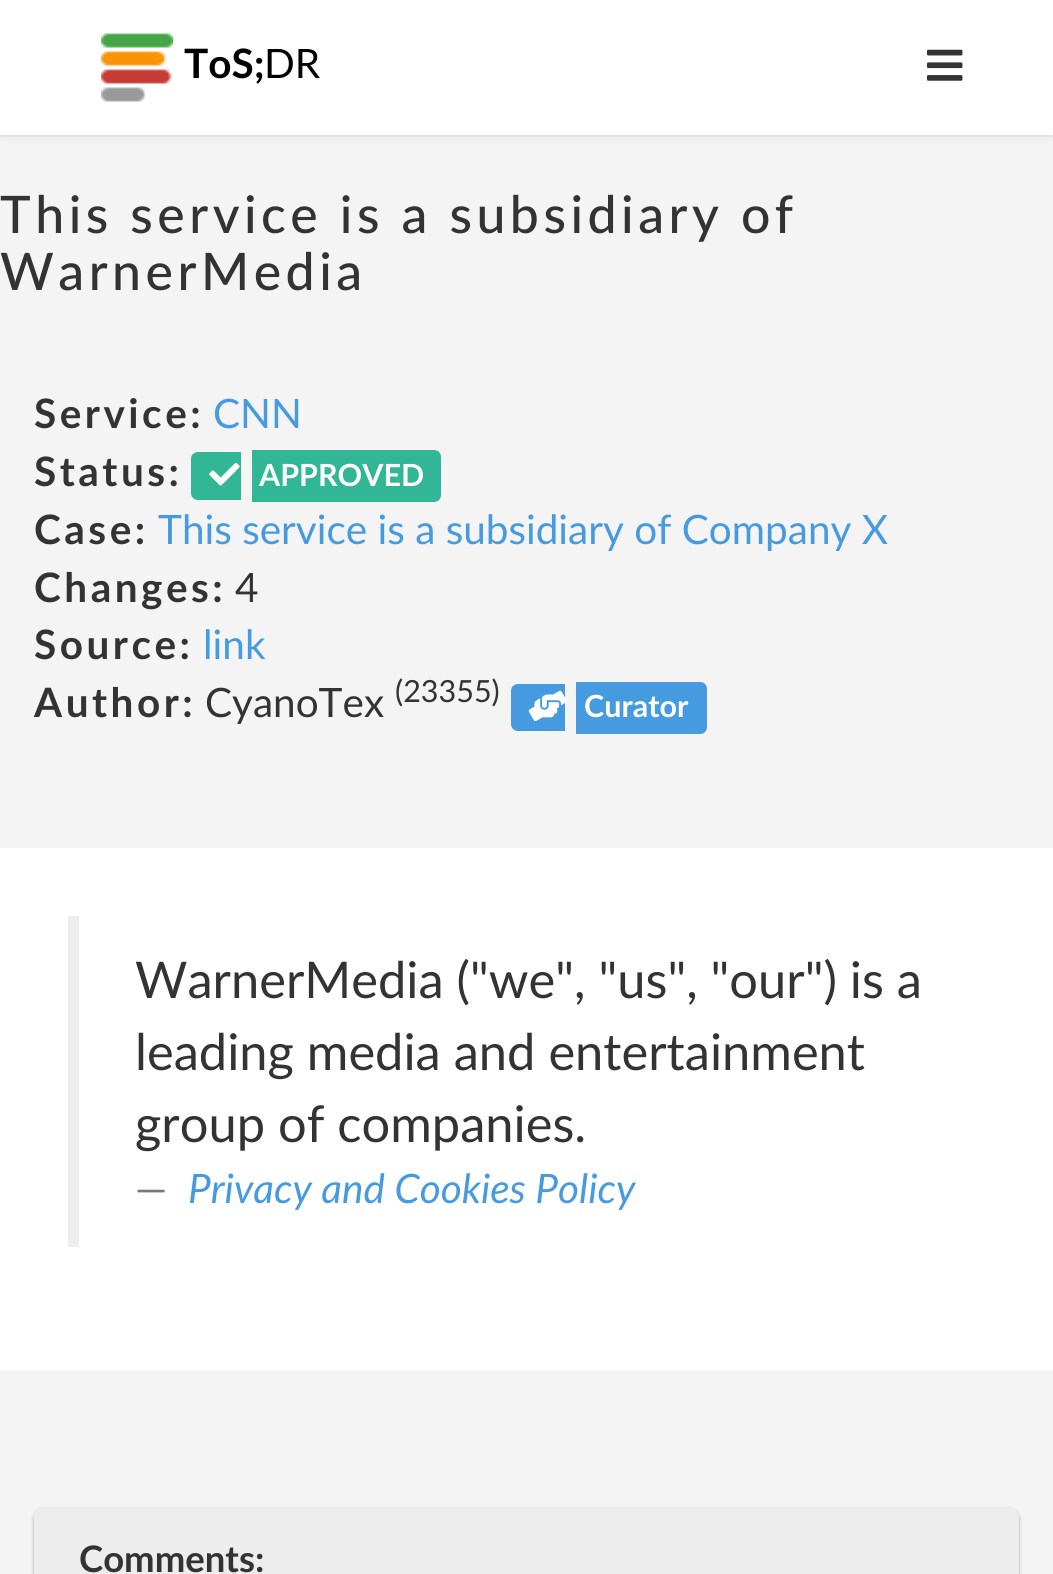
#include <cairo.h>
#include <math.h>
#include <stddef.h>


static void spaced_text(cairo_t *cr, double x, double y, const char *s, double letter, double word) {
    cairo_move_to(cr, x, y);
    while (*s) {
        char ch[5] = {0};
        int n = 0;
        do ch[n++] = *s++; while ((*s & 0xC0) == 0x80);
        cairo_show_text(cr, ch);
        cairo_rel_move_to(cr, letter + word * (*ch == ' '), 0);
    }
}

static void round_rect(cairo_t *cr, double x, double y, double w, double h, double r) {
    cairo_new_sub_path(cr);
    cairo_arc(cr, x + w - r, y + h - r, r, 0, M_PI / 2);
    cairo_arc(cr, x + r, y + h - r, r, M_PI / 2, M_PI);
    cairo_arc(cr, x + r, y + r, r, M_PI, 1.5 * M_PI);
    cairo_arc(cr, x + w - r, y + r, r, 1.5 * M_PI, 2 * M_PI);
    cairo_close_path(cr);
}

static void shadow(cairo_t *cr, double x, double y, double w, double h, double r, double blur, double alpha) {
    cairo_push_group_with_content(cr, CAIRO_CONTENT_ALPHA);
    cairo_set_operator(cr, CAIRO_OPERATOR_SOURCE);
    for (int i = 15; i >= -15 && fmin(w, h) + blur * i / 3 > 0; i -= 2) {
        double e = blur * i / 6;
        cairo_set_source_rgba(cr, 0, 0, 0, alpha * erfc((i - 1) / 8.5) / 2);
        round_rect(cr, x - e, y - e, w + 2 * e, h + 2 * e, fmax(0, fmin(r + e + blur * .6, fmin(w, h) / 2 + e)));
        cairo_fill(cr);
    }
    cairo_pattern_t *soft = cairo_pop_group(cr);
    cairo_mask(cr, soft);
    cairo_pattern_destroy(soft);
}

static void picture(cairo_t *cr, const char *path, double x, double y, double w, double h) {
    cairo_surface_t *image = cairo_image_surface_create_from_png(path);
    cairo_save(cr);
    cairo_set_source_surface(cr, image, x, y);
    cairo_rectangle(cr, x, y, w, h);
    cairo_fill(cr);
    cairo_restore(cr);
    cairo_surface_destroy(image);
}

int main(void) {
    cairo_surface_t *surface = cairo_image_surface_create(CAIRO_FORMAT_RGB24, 1053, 1574);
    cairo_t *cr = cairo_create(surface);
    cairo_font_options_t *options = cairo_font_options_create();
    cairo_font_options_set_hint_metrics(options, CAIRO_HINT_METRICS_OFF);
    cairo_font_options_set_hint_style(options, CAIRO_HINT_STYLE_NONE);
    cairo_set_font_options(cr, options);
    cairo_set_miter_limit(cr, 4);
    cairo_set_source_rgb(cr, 0.957, 0.957, 0.957);
    cairo_paint(cr);
    cairo_set_source_rgb(cr, 0.929, 0.929, 0.929);
    cairo_rectangle(cr, 0, 135, 1053, 2);
    cairo_fill(cr);
    cairo_set_source_rgb(cr, 0, 0, 0);
    shadow(cr, 0, 2, 1053, 135, 0, 5.5, 0.07);
    cairo_set_source_rgb(cr, 1, 1, 1);
    cairo_rectangle(cr, 0, 0, 1053, 135);
    cairo_fill(cr);
    picture(cr, "img1.png", 101, 33, 73, 69);
    cairo_select_font_face(cr, "Lato", CAIRO_FONT_SLANT_NORMAL, CAIRO_FONT_WEIGHT_BOLD);
    cairo_set_font_size(cr, 40.5);
    cairo_set_source_rgb(cr, 0, 0, 0);
    cairo_move_to(cr, 184, 78);
    cairo_show_text(cr, "ToS;");
    cairo_select_font_face(cr, "Lato", CAIRO_FONT_SLANT_NORMAL, CAIRO_FONT_WEIGHT_NORMAL);
    cairo_move_to(cr, 264, 78);
    cairo_show_text(cr, "DR");
    picture(cr, "img2.png", 927, 49, 36, 32);
    cairo_select_font_face(cr, "Lato Medium", CAIRO_FONT_SLANT_NORMAL, CAIRO_FONT_WEIGHT_NORMAL);
    cairo_set_font_size(cr, 51.75);
    cairo_set_source_rgb(cr, 0.2, 0.2, 0.2);
    spaced_text(cr, 0, 233, "This service is a subsidiary of", 4.5, 0);
    spaced_text(cr, 0, 290, "WarnerMedia", 4.5, 0);
    cairo_select_font_face(cr, "Lato", CAIRO_FONT_SLANT_NORMAL, CAIRO_FONT_WEIGHT_BOLD);
    cairo_set_font_size(cr, 40.5);
    spaced_text(cr, 34, 428, "Service:", 3.5, 0);
    cairo_select_font_face(cr, "Lato", CAIRO_FONT_SLANT_NORMAL, CAIRO_FONT_WEIGHT_NORMAL);
    cairo_set_source_rgb(cr, 0.275, 0.604, 0.878);
    cairo_move_to(cr, 213, 428);
    cairo_show_text(cr, "CNN");
    cairo_select_font_face(cr, "Lato", CAIRO_FONT_SLANT_NORMAL, CAIRO_FONT_WEIGHT_BOLD);
    cairo_set_source_rgb(cr, 0.2, 0.2, 0.2);
    spaced_text(cr, 34, 486, "Status:", 3.5, 0);
    cairo_set_source_rgb(cr, 0.196, 0.718, 0.588);
    cairo_new_path(cr);
    cairo_move_to(cr, 198, 452);
    cairo_line_to(cr, 241, 452);
    cairo_line_to(cr, 241, 500);
    cairo_line_to(cr, 198, 500);
    cairo_curve_to(cr, 194, 500, 191, 497, 191, 493);
    cairo_line_to(cr, 191, 459);
    cairo_curve_to(cr, 191, 455, 194, 452, 198, 452);
    cairo_close_path(cr);
    cairo_fill(cr);
    cairo_new_path(cr);
    cairo_move_to(cr, 252, 450);
    cairo_line_to(cr, 434, 450);
    cairo_curve_to(cr, 438, 450, 441, 453, 441, 457);
    cairo_line_to(cr, 441, 495);
    cairo_curve_to(cr, 441, 499, 438, 502, 434, 502);
    cairo_line_to(cr, 252, 502);
    cairo_close_path(cr);
    cairo_fill(cr);
    picture(cr, "img3.png", 209, 462, 31, 24);
    cairo_set_font_size(cr, 30.5);
    cairo_set_source_rgb(cr, 1, 1, 1);
    cairo_move_to(cr, 259, 486);
    cairo_show_text(cr, "APPROVED");
    cairo_set_font_size(cr, 40.5);
    cairo_set_source_rgb(cr, 0.2, 0.2, 0.2);
    spaced_text(cr, 34, 544, "Case:", 3.5, 0);
    cairo_select_font_face(cr, "Lato", CAIRO_FONT_SLANT_NORMAL, CAIRO_FONT_WEIGHT_NORMAL);
    cairo_set_source_rgb(cr, 0.275, 0.604, 0.878);
    cairo_move_to(cr, 158, 544);
    cairo_show_text(cr, "This service is a subsidiary of Company X");
    cairo_select_font_face(cr, "Lato", CAIRO_FONT_SLANT_NORMAL, CAIRO_FONT_WEIGHT_BOLD);
    cairo_set_source_rgb(cr, 0.2, 0.2, 0.2);
    spaced_text(cr, 34, 602, "Changes:", 3.5, 0);
    cairo_select_font_face(cr, "Lato", CAIRO_FONT_SLANT_NORMAL, CAIRO_FONT_WEIGHT_NORMAL);
    cairo_move_to(cr, 235, 602);
    cairo_show_text(cr, "4");
    cairo_select_font_face(cr, "Lato", CAIRO_FONT_SLANT_NORMAL, CAIRO_FONT_WEIGHT_BOLD);
    spaced_text(cr, 34, 659, "Source:", 3.5, 0);
    cairo_select_font_face(cr, "Lato", CAIRO_FONT_SLANT_NORMAL, CAIRO_FONT_WEIGHT_NORMAL);
    cairo_set_source_rgb(cr, 0.275, 0.604, 0.878);
    cairo_move_to(cr, 203, 659);
    cairo_show_text(cr, "link");
    cairo_select_font_face(cr, "Lato", CAIRO_FONT_SLANT_NORMAL, CAIRO_FONT_WEIGHT_BOLD);
    cairo_set_source_rgb(cr, 0.2, 0.2, 0.2);
    spaced_text(cr, 34, 717, "Author:", 3.5, 0);
    cairo_select_font_face(cr, "Lato", CAIRO_FONT_SLANT_NORMAL, CAIRO_FONT_WEIGHT_NORMAL);
    cairo_move_to(cr, 205, 717);
    cairo_show_text(cr, "CyanoTex");
    cairo_set_font_size(cr, 30.5);
    cairo_move_to(cr, 395, 702);
    cairo_show_text(cr, "(23355)");
    cairo_set_source_rgb(cr, 0.275, 0.604, 0.878);
    cairo_new_path(cr);
    cairo_move_to(cr, 518, 684);
    cairo_line_to(cr, 565, 684);
    cairo_line_to(cr, 565, 731);
    cairo_line_to(cr, 518, 731);
    cairo_curve_to(cr, 514, 731, 511, 728, 511, 724);
    cairo_line_to(cr, 511, 691);
    cairo_curve_to(cr, 511, 687, 514, 684, 518, 684);
    cairo_close_path(cr);
    cairo_fill(cr);
    cairo_new_path(cr);
    cairo_move_to(cr, 576, 682);
    cairo_line_to(cr, 700, 682);
    cairo_curve_to(cr, 704, 682, 707, 685, 707, 689);
    cairo_line_to(cr, 707, 727);
    cairo_curve_to(cr, 707, 731, 704, 734, 700, 734);
    cairo_line_to(cr, 576, 734);
    cairo_close_path(cr);
    cairo_fill(cr);
    picture(cr, "img4.png", 528, 690, 39, 32);
    cairo_select_font_face(cr, "Lato", CAIRO_FONT_SLANT_NORMAL, CAIRO_FONT_WEIGHT_BOLD);
    cairo_set_source_rgb(cr, 1, 1, 1);
    cairo_move_to(cr, 584, 717);
    cairo_show_text(cr, "Curator");
    cairo_rectangle(cr, 0, 848, 1053, 522);
    cairo_fill(cr);
    cairo_set_source_rgb(cr, 0.933, 0.933, 0.933);
    cairo_rectangle(cr, 68, 916, 11, 331);
    cairo_fill(cr);
    cairo_select_font_face(cr, "Lato", CAIRO_FONT_SLANT_NORMAL, CAIRO_FONT_WEIGHT_NORMAL);
    cairo_set_font_size(cr, 50.6);
    cairo_set_source_rgb(cr, 0.2, 0.2, 0.2);
    cairo_move_to(cr, 135, 998);
    cairo_show_text(cr, "WarnerMedia (\"we\", \"us\", \"our\") is a");
    cairo_move_to(cr, 135, 1070);
    cairo_show_text(cr, "leading media and entertainment");
    cairo_move_to(cr, 135, 1142);
    cairo_show_text(cr, "group of companies.");
    cairo_set_font_size(cr, 40.5);
    cairo_set_source_rgb(cr, 0.467, 0.467, 0.467);
    cairo_move_to(cr, 135, 1203);
    cairo_show_text(cr, "—");
    cairo_select_font_face(cr, "Lato", CAIRO_FONT_SLANT_ITALIC, CAIRO_FONT_WEIGHT_NORMAL);
    cairo_set_source_rgb(cr, 0.275, 0.604, 0.878);
    cairo_move_to(cr, 188, 1203);
    cairo_show_text(cr, "Privacy and Cookies Policy");
    cairo_set_source_rgb(cr, 0, 0, 0);
    shadow(cr, 34, 1510, 985, 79, 9, 2, 0.3);
    cairo_set_source_rgb(cr, 0.929, 0.929, 0.929);
    cairo_new_path(cr);
    cairo_move_to(cr, 43, 1508);
    cairo_line_to(cr, 1010, 1508);
    cairo_curve_to(cr, 1015, 1508, 1019, 1512, 1019, 1517);
    cairo_line_to(cr, 1019, 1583);
    cairo_line_to(cr, 34, 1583);
    cairo_line_to(cr, 34, 1517);
    cairo_curve_to(cr, 34, 1512, 38, 1508, 43, 1508);
    cairo_close_path(cr);
    cairo_fill(cr);
    cairo_select_font_face(cr, "Lato", CAIRO_FONT_SLANT_NORMAL, CAIRO_FONT_WEIGHT_BOLD);
    cairo_set_font_size(cr, 36.5);
    cairo_set_source_rgb(cr, 0.2, 0.2, 0.2);
    cairo_move_to(cr, 79, 1572);
    cairo_show_text(cr, "Comments:");
    cairo_surface_write_to_png(surface, "page.png");
    cairo_font_options_destroy(options);
    cairo_destroy(cr);
    cairo_surface_destroy(surface);
    return 0;
}
